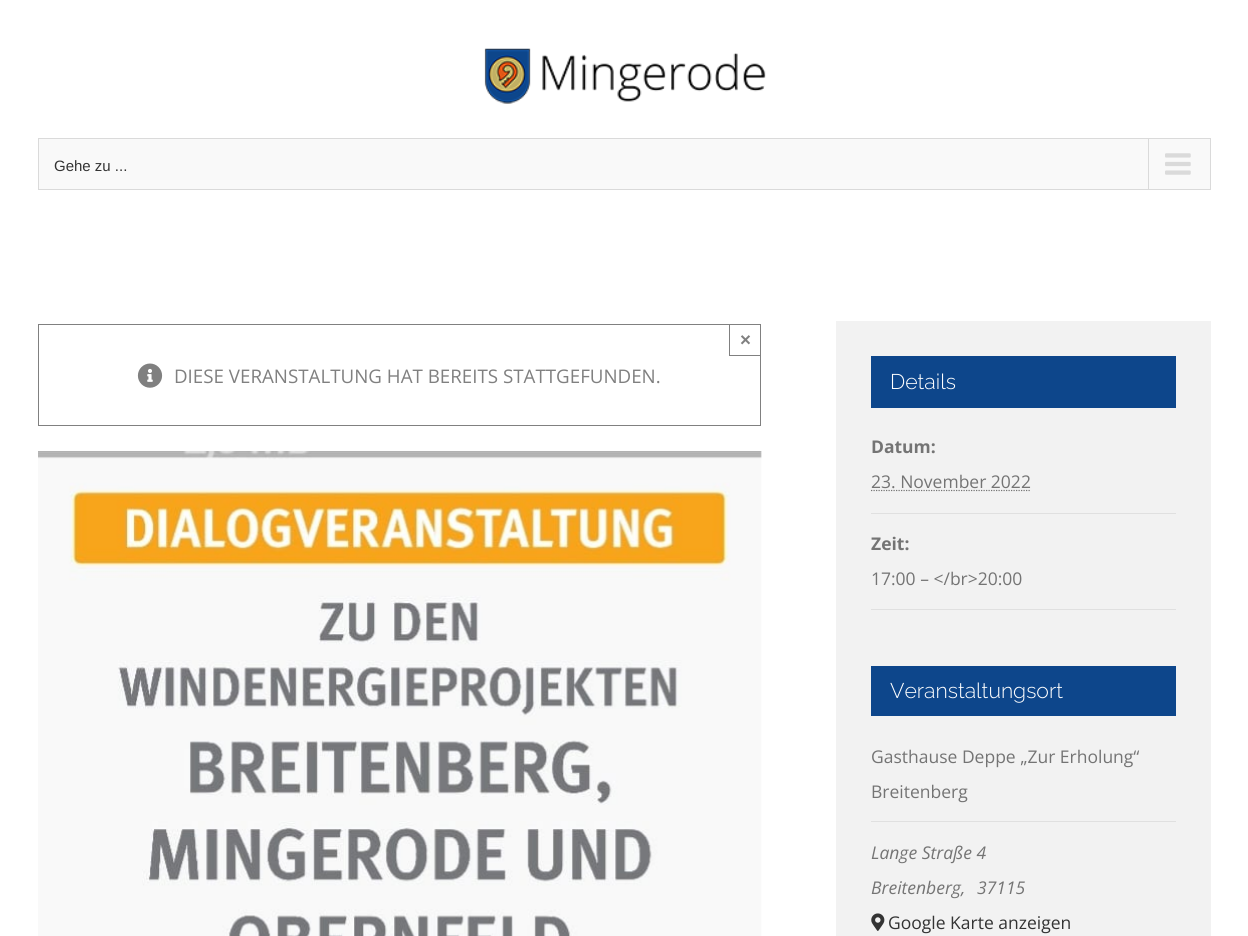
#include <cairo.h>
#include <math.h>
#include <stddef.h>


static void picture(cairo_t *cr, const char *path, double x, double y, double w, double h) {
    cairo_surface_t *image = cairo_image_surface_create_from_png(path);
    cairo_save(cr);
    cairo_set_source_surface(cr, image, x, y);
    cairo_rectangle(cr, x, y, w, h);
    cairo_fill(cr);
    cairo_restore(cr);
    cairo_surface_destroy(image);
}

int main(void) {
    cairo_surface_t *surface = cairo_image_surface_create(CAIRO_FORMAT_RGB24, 1248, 936);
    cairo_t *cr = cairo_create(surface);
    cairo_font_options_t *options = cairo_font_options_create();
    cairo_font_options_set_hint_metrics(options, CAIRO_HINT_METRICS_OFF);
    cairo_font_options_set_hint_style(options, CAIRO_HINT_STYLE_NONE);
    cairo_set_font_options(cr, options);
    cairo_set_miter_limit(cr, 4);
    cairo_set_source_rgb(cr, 1, 1, 1);
    cairo_paint(cr);
    picture(cr, "img1.png", 484, 48, 282, 56);
    cairo_set_source_rgb(cr, 0.976, 0.976, 0.976);
    cairo_rectangle(cr, 38.5, 138.5, 1172, 51);
    cairo_fill_preserve(cr);
    cairo_set_source_rgb(cr, 0.855, 0.855, 0.855);
    cairo_set_line_width(cr, 1);
    cairo_stroke(cr);
    cairo_select_font_face(cr, "Liberation Sans", CAIRO_FONT_SLANT_NORMAL, CAIRO_FONT_WEIGHT_NORMAL);
    cairo_set_font_size(cr, 15);
    cairo_set_source_rgb(cr, 0.2, 0.2, 0.2);
    cairo_move_to(cr, 54, 171);
    cairo_show_text(cr, "Gehe zu ...");
    cairo_set_source_rgb(cr, 0.855, 0.855, 0.855);
    cairo_rectangle(cr, 1148, 139, 1, 50);
    cairo_fill(cr);
    picture(cr, "img2.png", 1165, 153, 26, 22);
    cairo_rectangle(cr, 38.5, 324.5, 722, 101);
    cairo_set_source_rgb(cr, 0.502, 0.502, 0.502);
    cairo_stroke(cr);
    cairo_rectangle(cr, 729, 355, 32, 1);
    cairo_fill(cr);
    cairo_rectangle(cr, 729, 324, 1, 32);
    cairo_fill(cr);
    cairo_select_font_face(cr, "Liberation Sans", CAIRO_FONT_SLANT_NORMAL, CAIRO_FONT_WEIGHT_BOLD);
    cairo_set_font_size(cr, 18.75);
    cairo_move_to(cr, 740, 346);
    cairo_show_text(cr, "×");
    picture(cr, "img3.png", 137, 363, 26, 25);
    cairo_select_font_face(cr, "Open Sans", CAIRO_FONT_SLANT_NORMAL, CAIRO_FONT_WEIGHT_NORMAL);
    cairo_move_to(cr, 174, 383);
    cairo_show_text(cr, "DIESE VERANSTALTUNG HAT BEREITS STATTGEFUNDEN.");
    picture(cr, "img4.png", 38, 451, 724, 485);
    cairo_set_source_rgb(cr, 0.949, 0.949, 0.949);
    cairo_rectangle(cr, 836, 321, 375, 615);
    cairo_fill(cr);
    cairo_set_source_rgb(cr, 0.051, 0.275, 0.545);
    cairo_rectangle(cr, 871, 356, 305, 52);
    cairo_fill(cr);
    cairo_select_font_face(cr, "Raleway Light", CAIRO_FONT_SLANT_NORMAL, CAIRO_FONT_WEIGHT_NORMAL);
    cairo_set_font_size(cr, 21.25);
    cairo_set_source_rgb(cr, 1, 1, 1);
    cairo_move_to(cr, 890, 389);
    cairo_show_text(cr, "Details");
    cairo_select_font_face(cr, "Open Sans", CAIRO_FONT_SLANT_NORMAL, CAIRO_FONT_WEIGHT_BOLD);
    cairo_set_font_size(cr, 17.5);
    cairo_set_source_rgb(cr, 0.455, 0.455, 0.455);
    cairo_move_to(cr, 871, 453);
    cairo_show_text(cr, "Datum:");
    cairo_set_source_rgb(cr, 0.878, 0.878, 0.878);
    cairo_rectangle(cr, 871, 513, 305, 1);
    cairo_fill(cr);
    cairo_select_font_face(cr, "Open Sans", CAIRO_FONT_SLANT_NORMAL, CAIRO_FONT_WEIGHT_NORMAL);
    cairo_set_source_rgb(cr, 0.455, 0.455, 0.455);
    cairo_move_to(cr, 871, 488);
    cairo_show_text(cr, "23. November 2022");
    cairo_new_path(cr);
    cairo_move_to(cr, 871, 490.5);
    cairo_line_to(cr, 1031, 490.5);
    cairo_set_line_width(cr, 1.2);
    cairo_set_dash(cr, (double[]){1.25, 1.25}, 2, 0);
    cairo_stroke(cr);
    cairo_select_font_face(cr, "Open Sans", CAIRO_FONT_SLANT_NORMAL, CAIRO_FONT_WEIGHT_BOLD);
    cairo_move_to(cr, 871, 550);
    cairo_show_text(cr, "Zeit:");
    cairo_set_source_rgb(cr, 0.878, 0.878, 0.878);
    cairo_rectangle(cr, 871, 609, 305, 1);
    cairo_fill(cr);
    cairo_select_font_face(cr, "Open Sans", CAIRO_FONT_SLANT_NORMAL, CAIRO_FONT_WEIGHT_NORMAL);
    cairo_set_source_rgb(cr, 0.455, 0.455, 0.455);
    cairo_move_to(cr, 871, 585);
    cairo_show_text(cr, "17:00 – </br>20:00");
    cairo_set_source_rgb(cr, 0.051, 0.275, 0.545);
    cairo_rectangle(cr, 871, 666, 305, 50);
    cairo_fill(cr);
    cairo_select_font_face(cr, "Raleway Light", CAIRO_FONT_SLANT_NORMAL, CAIRO_FONT_WEIGHT_NORMAL);
    cairo_set_font_size(cr, 21.25);
    cairo_set_source_rgb(cr, 1, 1, 1);
    cairo_move_to(cr, 890, 698);
    cairo_show_text(cr, "Veranstaltungsort");
    cairo_set_source_rgb(cr, 0.878, 0.878, 0.878);
    cairo_rectangle(cr, 871, 821, 305, 1);
    cairo_fill(cr);
    cairo_select_font_face(cr, "Open Sans", CAIRO_FONT_SLANT_NORMAL, CAIRO_FONT_WEIGHT_NORMAL);
    cairo_set_font_size(cr, 17.5);
    cairo_set_source_rgb(cr, 0.455, 0.455, 0.455);
    cairo_move_to(cr, 871, 763);
    cairo_show_text(cr, "Gasthause Deppe „Zur Erholung“");
    cairo_move_to(cr, 871, 798);
    cairo_show_text(cr, "Breitenberg");
    cairo_select_font_face(cr, "Open Sans", CAIRO_FONT_SLANT_ITALIC, CAIRO_FONT_WEIGHT_NORMAL);
    cairo_move_to(cr, 871, 859);
    cairo_show_text(cr, "Lange Straße 4");
    cairo_move_to(cr, 871, 894);
    cairo_show_text(cr, "Breitenberg,");
    cairo_move_to(cr, 977, 894);
    cairo_show_text(cr, "37115");
    picture(cr, "img5.png", 871, 913, 14, 18);
    cairo_select_font_face(cr, "Open Sans", CAIRO_FONT_SLANT_NORMAL, CAIRO_FONT_WEIGHT_NORMAL);
    cairo_set_source_rgb(cr, 0.2, 0.2, 0.2);
    cairo_move_to(cr, 888, 929);
    cairo_show_text(cr, "Google Karte anzeigen");
    cairo_surface_write_to_png(surface, "page.png");
    cairo_font_options_destroy(options);
    cairo_destroy(cr);
    cairo_surface_destroy(surface);
    return 0;
}
